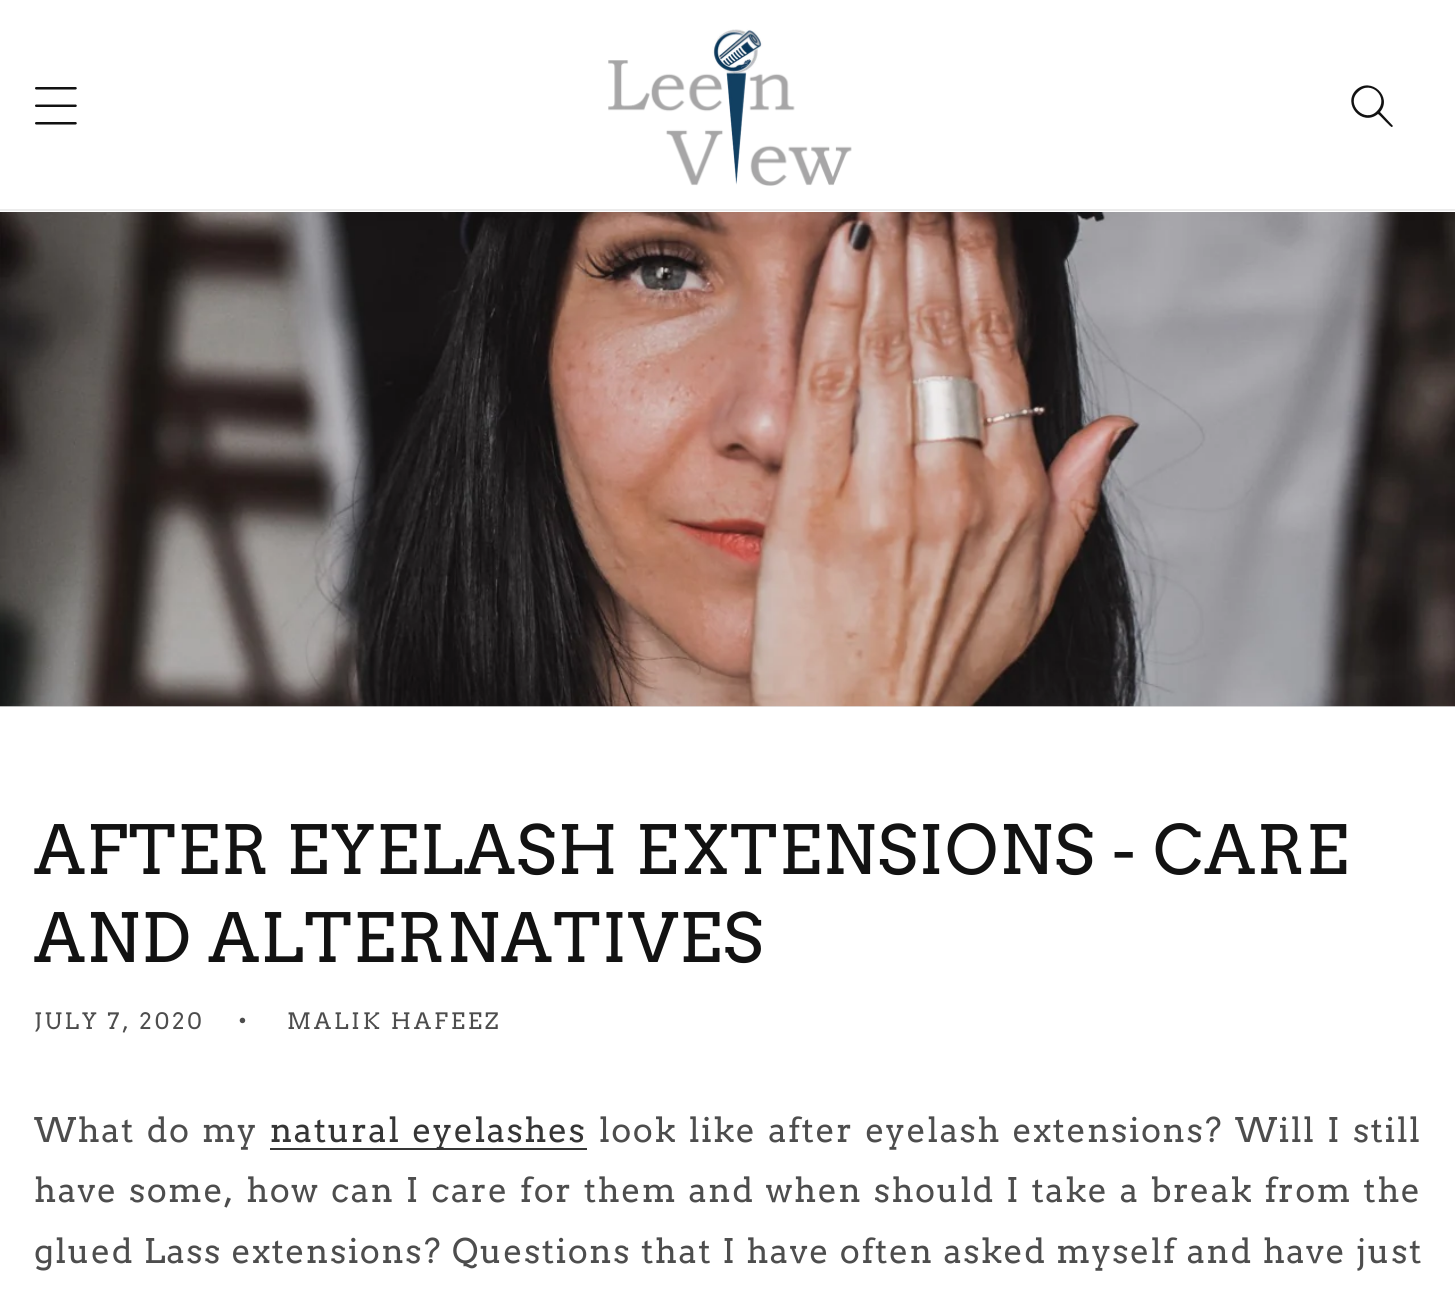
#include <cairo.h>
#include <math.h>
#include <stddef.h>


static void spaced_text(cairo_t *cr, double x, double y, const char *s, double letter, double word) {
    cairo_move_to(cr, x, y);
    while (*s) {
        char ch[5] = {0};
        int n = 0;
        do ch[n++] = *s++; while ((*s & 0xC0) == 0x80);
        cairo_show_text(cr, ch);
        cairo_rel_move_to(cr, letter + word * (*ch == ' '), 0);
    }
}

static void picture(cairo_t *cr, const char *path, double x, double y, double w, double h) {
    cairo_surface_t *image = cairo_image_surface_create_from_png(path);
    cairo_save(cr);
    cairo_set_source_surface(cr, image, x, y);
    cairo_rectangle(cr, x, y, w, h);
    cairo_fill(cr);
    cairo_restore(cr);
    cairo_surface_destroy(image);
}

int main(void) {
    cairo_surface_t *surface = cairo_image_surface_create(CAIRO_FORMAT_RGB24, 1455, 1296);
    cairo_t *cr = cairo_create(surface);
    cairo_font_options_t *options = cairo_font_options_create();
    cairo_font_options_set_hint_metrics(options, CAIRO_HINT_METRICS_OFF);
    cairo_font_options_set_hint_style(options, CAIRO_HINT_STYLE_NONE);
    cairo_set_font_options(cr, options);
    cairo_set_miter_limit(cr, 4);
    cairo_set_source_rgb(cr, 1, 1, 1);
    cairo_paint(cr);
    cairo_set_source_rgb(cr, 0.925, 0.925, 0.925);
    cairo_rectangle(cr, 0, 209, 1455, 2);
    cairo_fill(cr);
    picture(cr, "img1.png", 35, 87, 42, 38);
    picture(cr, "img2.png", 608, 29, 244, 157);
    cairo_set_source_rgb(cr, 0.071, 0.071, 0.071);
    cairo_set_fill_rule(cr, CAIRO_FILL_RULE_EVEN_ODD);
    cairo_new_path(cr);
    cairo_move_to(cr, 1377, 111);
    cairo_curve_to(cr, 1365, 124, 1345, 104, 1358, 92);
    cairo_curve_to(cr, 1371, 79, 1390, 98, 1377, 111);
    cairo_close_path(cr);
    cairo_move_to(cr, 1378, 114);
    cairo_curve_to(cr, 1362, 127, 1342, 104, 1356, 90);
    cairo_curve_to(cr, 1371, 76, 1393, 97, 1380, 112);
    cairo_line_to(cr, 1393, 126);
    cairo_line_to(cr, 1392, 127);
    cairo_curve_to(cr, 1391, 128, 1380, 115, 1378, 114);
    cairo_close_path(cr);
    cairo_fill(cr);
    cairo_set_source_rgb(cr, 0.91, 0.91, 0.91);
    cairo_rectangle(cr, 0, 706, 1455, 1);
    cairo_fill(cr);
    picture(cr, "img3.png", 0, 212, 1455, 495);
    cairo_select_font_face(cr, "Arvo", CAIRO_FONT_SLANT_NORMAL, CAIRO_FONT_WEIGHT_NORMAL);
    cairo_set_font_size(cr, 67.5);
    cairo_set_source_rgb(cr, 0.071, 0.071, 0.071);
    spaced_text(cr, 34, 874, "AFTER EYELASH EXTENSIONS - CARE", 1.35, 0);
    spaced_text(cr, 34, 962, "AND ALTERNATIVES", 1.35, 0);
    cairo_set_font_size(cr, 22.5);
    cairo_set_source_rgb(cr, 0.302, 0.302, 0.302);
    spaced_text(cr, 34, 1029, "JULY 7, 2020", 3, 0);
    spaced_text(cr, 238, 1029, "•", 3, 0);
    spaced_text(cr, 287, 1029, "MALIK HAFEEZ", 3, 0);
    cairo_set_font_size(cr, 33.75);
    spaced_text(cr, 34, 1142, "What do my", 1.35, 3);
    cairo_set_source_rgb(cr, 0.212, 0.212, 0.212);
    cairo_rectangle(cr, 270, 1148, 317, 2);
    cairo_fill(cr);
    cairo_set_source_rgb(cr, 0.208, 0.208, 0.208);
    spaced_text(cr, 270, 1142, "natural eyelashes", 1.35, 3);
    cairo_set_source_rgb(cr, 0.302, 0.302, 0.302);
    spaced_text(cr, 599, 1142, "look like after eyelash extensions?", 1.35, 3);
    spaced_text(cr, 1235, 1142, "Will I still", 1.35, 3);
    spaced_text(cr, 34, 1202, "have some, how can I care for them and when should I take a break from the", 1.35, 2.6);
    spaced_text(cr, 34, 1263, "glued Lass extensions?", 1.35, 1);
    spaced_text(cr, 452, 1263, "Questions that I have often asked myself and have just", 1.35, 1.25);
    cairo_surface_write_to_png(surface, "page.png");
    cairo_font_options_destroy(options);
    cairo_destroy(cr);
    cairo_surface_destroy(surface);
    return 0;
}
